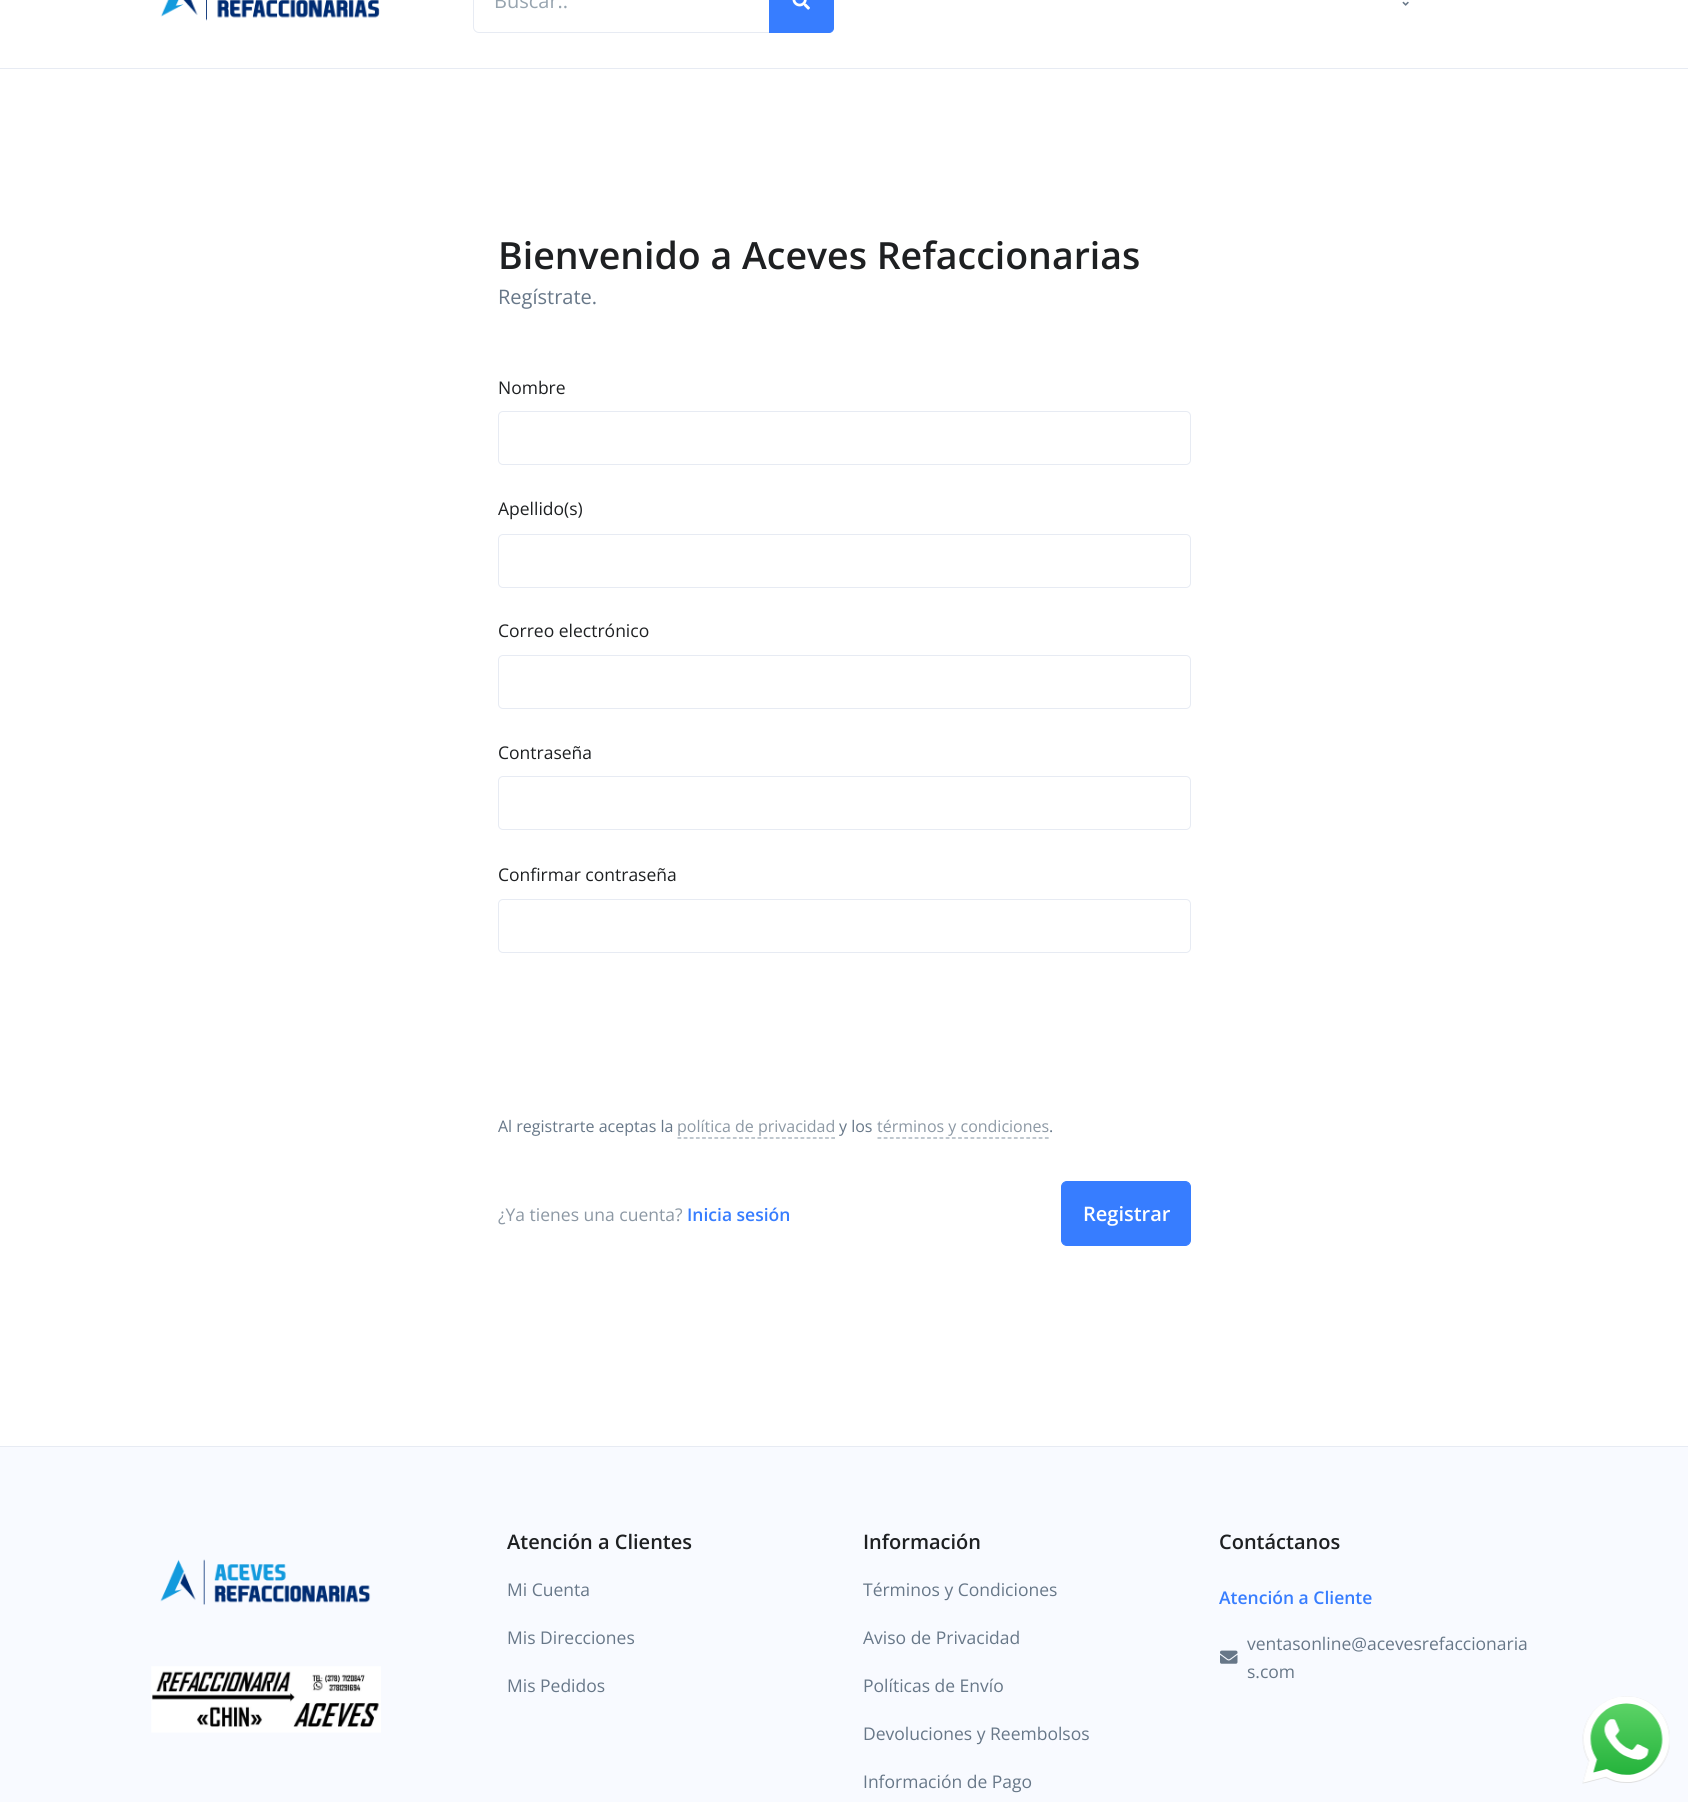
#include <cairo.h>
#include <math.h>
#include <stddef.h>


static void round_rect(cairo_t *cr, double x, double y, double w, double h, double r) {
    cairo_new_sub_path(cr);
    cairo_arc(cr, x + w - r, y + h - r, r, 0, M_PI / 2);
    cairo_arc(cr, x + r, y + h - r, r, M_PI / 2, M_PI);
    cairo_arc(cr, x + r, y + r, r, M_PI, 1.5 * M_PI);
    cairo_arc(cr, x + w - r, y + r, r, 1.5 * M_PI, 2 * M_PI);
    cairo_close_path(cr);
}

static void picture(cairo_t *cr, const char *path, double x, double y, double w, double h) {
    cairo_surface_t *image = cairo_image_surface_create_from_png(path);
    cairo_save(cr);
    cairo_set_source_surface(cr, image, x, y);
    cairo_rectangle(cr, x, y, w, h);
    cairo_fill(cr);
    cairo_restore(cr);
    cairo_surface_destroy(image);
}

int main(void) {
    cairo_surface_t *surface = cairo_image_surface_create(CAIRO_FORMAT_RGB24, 1688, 1802);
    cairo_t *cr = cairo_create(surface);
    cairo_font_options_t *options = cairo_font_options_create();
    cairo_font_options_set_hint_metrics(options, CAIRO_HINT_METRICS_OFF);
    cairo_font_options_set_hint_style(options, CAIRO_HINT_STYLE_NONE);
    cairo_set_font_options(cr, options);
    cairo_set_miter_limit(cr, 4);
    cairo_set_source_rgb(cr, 1, 1, 1);
    cairo_paint(cr);
    cairo_set_source_rgb(cr, 0.906, 0.918, 0.953);
    cairo_rectangle(cr, 0, 68, 1688, 1);
    cairo_fill(cr);
    picture(cr, "img1.png", 160, 0, 220, 21);
    cairo_new_path(cr);
    cairo_move_to(cr, 479, -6.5);
    cairo_line_to(cr, 769.5, -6.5);
    cairo_line_to(cr, 769.5, 32.5);
    cairo_line_to(cr, 479, 32.5);
    cairo_curve_to(cr, 476, 32.5, 473.5, 30, 473.5, 27);
    cairo_line_to(cr, 473.5, -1);
    cairo_curve_to(cr, 473.5, -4, 476, -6.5, 479, -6.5);
    cairo_close_path(cr);
    cairo_set_line_width(cr, 1);
    cairo_stroke(cr);
    cairo_select_font_face(cr, "Open Sans", CAIRO_FONT_SLANT_NORMAL, CAIRO_FONT_WEIGHT_NORMAL);
    cairo_set_font_size(cr, 20);
    cairo_set_source_rgb(cr, 0.592, 0.643, 0.686);
    cairo_move_to(cr, 494, 8);
    cairo_show_text(cr, "Buscar..");
    cairo_set_source_rgb(cr, 0.216, 0.49, 1);
    cairo_new_path(cr);
    cairo_move_to(cr, 769.5, -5.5);
    cairo_line_to(cr, 829, -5.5);
    cairo_curve_to(cr, 831.5, -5.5, 833.5, -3.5, 833.5, -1);
    cairo_line_to(cr, 833.5, 28);
    cairo_curve_to(cr, 833.5, 30.5, 831.5, 32.5, 829, 32.5);
    cairo_line_to(cr, 769.5, 32.5);
    cairo_close_path(cr);
    cairo_fill_preserve(cr);
    cairo_stroke(cr);
    picture(cr, "img2.png", 792, 0, 18, 10);
    picture(cr, "img3.png", 1402, 1, 7, 5);
    cairo_select_font_face(cr, "Open Sans SemiBold", CAIRO_FONT_SLANT_NORMAL, CAIRO_FONT_WEIGHT_NORMAL);
    cairo_set_font_size(cr, 37.5);
    cairo_set_source_rgb(cr, 0.118, 0.125, 0.133);
    cairo_move_to(cr, 498, 269);
    cairo_show_text(cr, "Bienvenido a Aceves Refaccionarias");
    cairo_select_font_face(cr, "Open Sans", CAIRO_FONT_SLANT_NORMAL, CAIRO_FONT_WEIGHT_NORMAL);
    cairo_set_font_size(cr, 20);
    cairo_set_source_rgb(cr, 0.404, 0.467, 0.533);
    cairo_move_to(cr, 498, 304);
    cairo_show_text(cr, "Regístrate.");
    cairo_set_font_size(cr, 17.5);
    cairo_set_source_rgb(cr, 0.118, 0.125, 0.133);
    cairo_move_to(cr, 498, 394);
    cairo_show_text(cr, "Nombre");
    round_rect(cr, 498.5, 411.5, 692, 53, 4.5);
    cairo_set_source_rgb(cr, 0.906, 0.918, 0.953);
    cairo_stroke(cr);
    cairo_set_source_rgb(cr, 0.118, 0.125, 0.133);
    cairo_move_to(cr, 498, 515);
    cairo_show_text(cr, "Apellido(s)");
    round_rect(cr, 498.5, 534.5, 692, 53, 4.5);
    cairo_set_source_rgb(cr, 0.906, 0.918, 0.953);
    cairo_stroke(cr);
    cairo_set_source_rgb(cr, 0.118, 0.125, 0.133);
    cairo_move_to(cr, 498, 637);
    cairo_show_text(cr, "Correo electrónico");
    round_rect(cr, 498.5, 655.5, 692, 53, 4.5);
    cairo_set_source_rgb(cr, 0.906, 0.918, 0.953);
    cairo_stroke(cr);
    cairo_set_source_rgb(cr, 0.118, 0.125, 0.133);
    cairo_move_to(cr, 498, 759);
    cairo_show_text(cr, "Contraseña");
    round_rect(cr, 498.5, 776.5, 692, 53, 4.5);
    cairo_set_source_rgb(cr, 0.906, 0.918, 0.953);
    cairo_stroke(cr);
    cairo_set_source_rgb(cr, 0.118, 0.125, 0.133);
    cairo_move_to(cr, 498, 881);
    cairo_show_text(cr, "Confirmar contraseña");
    round_rect(cr, 498.5, 899.5, 692, 53, 4.5);
    cairo_set_source_rgb(cr, 0.906, 0.918, 0.953);
    cairo_stroke(cr);
    cairo_set_font_size(cr, 16);
    cairo_set_source_rgb(cr, 0.404, 0.467, 0.533);
    cairo_move_to(cr, 498, 1132);
    cairo_show_text(cr, "Al registrarte aceptas la");
    cairo_set_source_rgb(cr, 0.549, 0.596, 0.643);
    cairo_move_to(cr, 677, 1132);
    cairo_show_text(cr, "política de privacidad");
    cairo_new_path(cr);
    cairo_move_to(cr, 677.5, 1138);
    cairo_line_to(cr, 835, 1138);
    cairo_set_source_rgb(cr, 0.592, 0.643, 0.686);
    cairo_set_line_width(cr, 1.2);
    cairo_set_dash(cr, (double[]){3.75, 2.4}, 2, 0);
    cairo_stroke(cr);
    cairo_set_source_rgb(cr, 0.404, 0.467, 0.533);
    cairo_move_to(cr, 839, 1132);
    cairo_show_text(cr, "y los");
    cairo_set_source_rgb(cr, 0.549, 0.596, 0.643);
    cairo_move_to(cr, 877, 1132);
    cairo_show_text(cr, "términos y condiciones");
    cairo_set_source_rgb(cr, 0.404, 0.467, 0.533);
    cairo_move_to(cr, 1049, 1132);
    cairo_show_text(cr, ".");
    cairo_new_path(cr);
    cairo_move_to(cr, 877.5, 1138);
    cairo_line_to(cr, 1049, 1138);
    cairo_set_source_rgb(cr, 0.592, 0.643, 0.686);
    cairo_set_dash(cr, (double[]){3.75, 2.45}, 2, 0);
    cairo_stroke(cr);
    cairo_set_font_size(cr, 17.5);
    cairo_set_source_rgb(cr, 0.549, 0.596, 0.643);
    cairo_move_to(cr, 498, 1221);
    cairo_show_text(cr, "¿Ya tienes una cuenta?");
    cairo_select_font_face(cr, "Open Sans SemiBold", CAIRO_FONT_SLANT_NORMAL, CAIRO_FONT_WEIGHT_NORMAL);
    cairo_set_source_rgb(cr, 0.216, 0.49, 1);
    cairo_move_to(cr, 687, 1221);
    cairo_show_text(cr, "Inicia sesión");
    round_rect(cr, 1061.5, 1181.5, 129, 64, 5.5);
    cairo_fill_preserve(cr);
    cairo_set_line_width(cr, 1);
    cairo_set_dash(cr, NULL, 0, 0);
    cairo_stroke(cr);
    cairo_set_font_size(cr, 20);
    cairo_set_source_rgb(cr, 1, 1, 1);
    cairo_move_to(cr, 1083, 1221);
    cairo_show_text(cr, "Registrar");
    cairo_set_source_rgb(cr, 0.969, 0.98, 1);
    cairo_rectangle(cr, 0, 1447, 1688, 355);
    cairo_fill(cr);
    cairo_set_source_rgb(cr, 0.906, 0.918, 0.953);
    cairo_rectangle(cr, 0, 1446, 1688, 1);
    cairo_fill(cr);
    picture(cr, "img4.png", 160, 1559, 211, 46);
    picture(cr, "img5.png", 151, 1666, 230, 67);
    cairo_set_source_rgb(cr, 0.118, 0.125, 0.133);
    cairo_move_to(cr, 507, 1549);
    cairo_show_text(cr, "Atención a Clientes");
    cairo_select_font_face(cr, "Open Sans", CAIRO_FONT_SLANT_NORMAL, CAIRO_FONT_WEIGHT_NORMAL);
    cairo_set_font_size(cr, 17.5);
    cairo_set_source_rgb(cr, 0.404, 0.467, 0.533);
    cairo_move_to(cr, 507, 1596);
    cairo_show_text(cr, "Mi Cuenta");
    cairo_move_to(cr, 507, 1644);
    cairo_show_text(cr, "Mis Direcciones");
    cairo_move_to(cr, 507, 1692);
    cairo_show_text(cr, "Mis Pedidos");
    cairo_select_font_face(cr, "Open Sans SemiBold", CAIRO_FONT_SLANT_NORMAL, CAIRO_FONT_WEIGHT_NORMAL);
    cairo_set_font_size(cr, 20);
    cairo_set_source_rgb(cr, 0.118, 0.125, 0.133);
    cairo_move_to(cr, 863, 1549);
    cairo_show_text(cr, "Información");
    cairo_select_font_face(cr, "Open Sans", CAIRO_FONT_SLANT_NORMAL, CAIRO_FONT_WEIGHT_NORMAL);
    cairo_set_font_size(cr, 17.5);
    cairo_set_source_rgb(cr, 0.404, 0.467, 0.533);
    cairo_move_to(cr, 863, 1596);
    cairo_show_text(cr, "Términos y Condiciones");
    cairo_move_to(cr, 863, 1644);
    cairo_show_text(cr, "Aviso de Privacidad");
    cairo_move_to(cr, 863, 1692);
    cairo_show_text(cr, "Políticas de Envío");
    cairo_move_to(cr, 863, 1740);
    cairo_show_text(cr, "Devoluciones y Reembolsos");
    cairo_move_to(cr, 863, 1788);
    cairo_show_text(cr, "Información de Pago");
    cairo_select_font_face(cr, "Open Sans SemiBold", CAIRO_FONT_SLANT_NORMAL, CAIRO_FONT_WEIGHT_NORMAL);
    cairo_set_font_size(cr, 20);
    cairo_set_source_rgb(cr, 0.118, 0.125, 0.133);
    cairo_move_to(cr, 1219, 1549);
    cairo_show_text(cr, "Contáctanos");
    cairo_set_font_size(cr, 17.5);
    cairo_set_source_rgb(cr, 0.216, 0.49, 1);
    cairo_move_to(cr, 1219, 1604);
    cairo_show_text(cr, "Atención a Cliente");
    picture(cr, "img6.png", 1220, 1650, 18, 14);
    cairo_select_font_face(cr, "Open Sans", CAIRO_FONT_SLANT_NORMAL, CAIRO_FONT_WEIGHT_NORMAL);
    cairo_set_source_rgb(cr, 0.404, 0.467, 0.533);
    cairo_move_to(cr, 1247, 1650);
    cairo_show_text(cr, "ventasonline@acevesrefaccionaria");
    cairo_move_to(cr, 1247, 1678);
    cairo_show_text(cr, "s.com");
    picture(cr, "img7.png", 1582, 1696, 88, 88);
    cairo_surface_write_to_png(surface, "page.png");
    cairo_font_options_destroy(options);
    cairo_destroy(cr);
    cairo_surface_destroy(surface);
    return 0;
}
